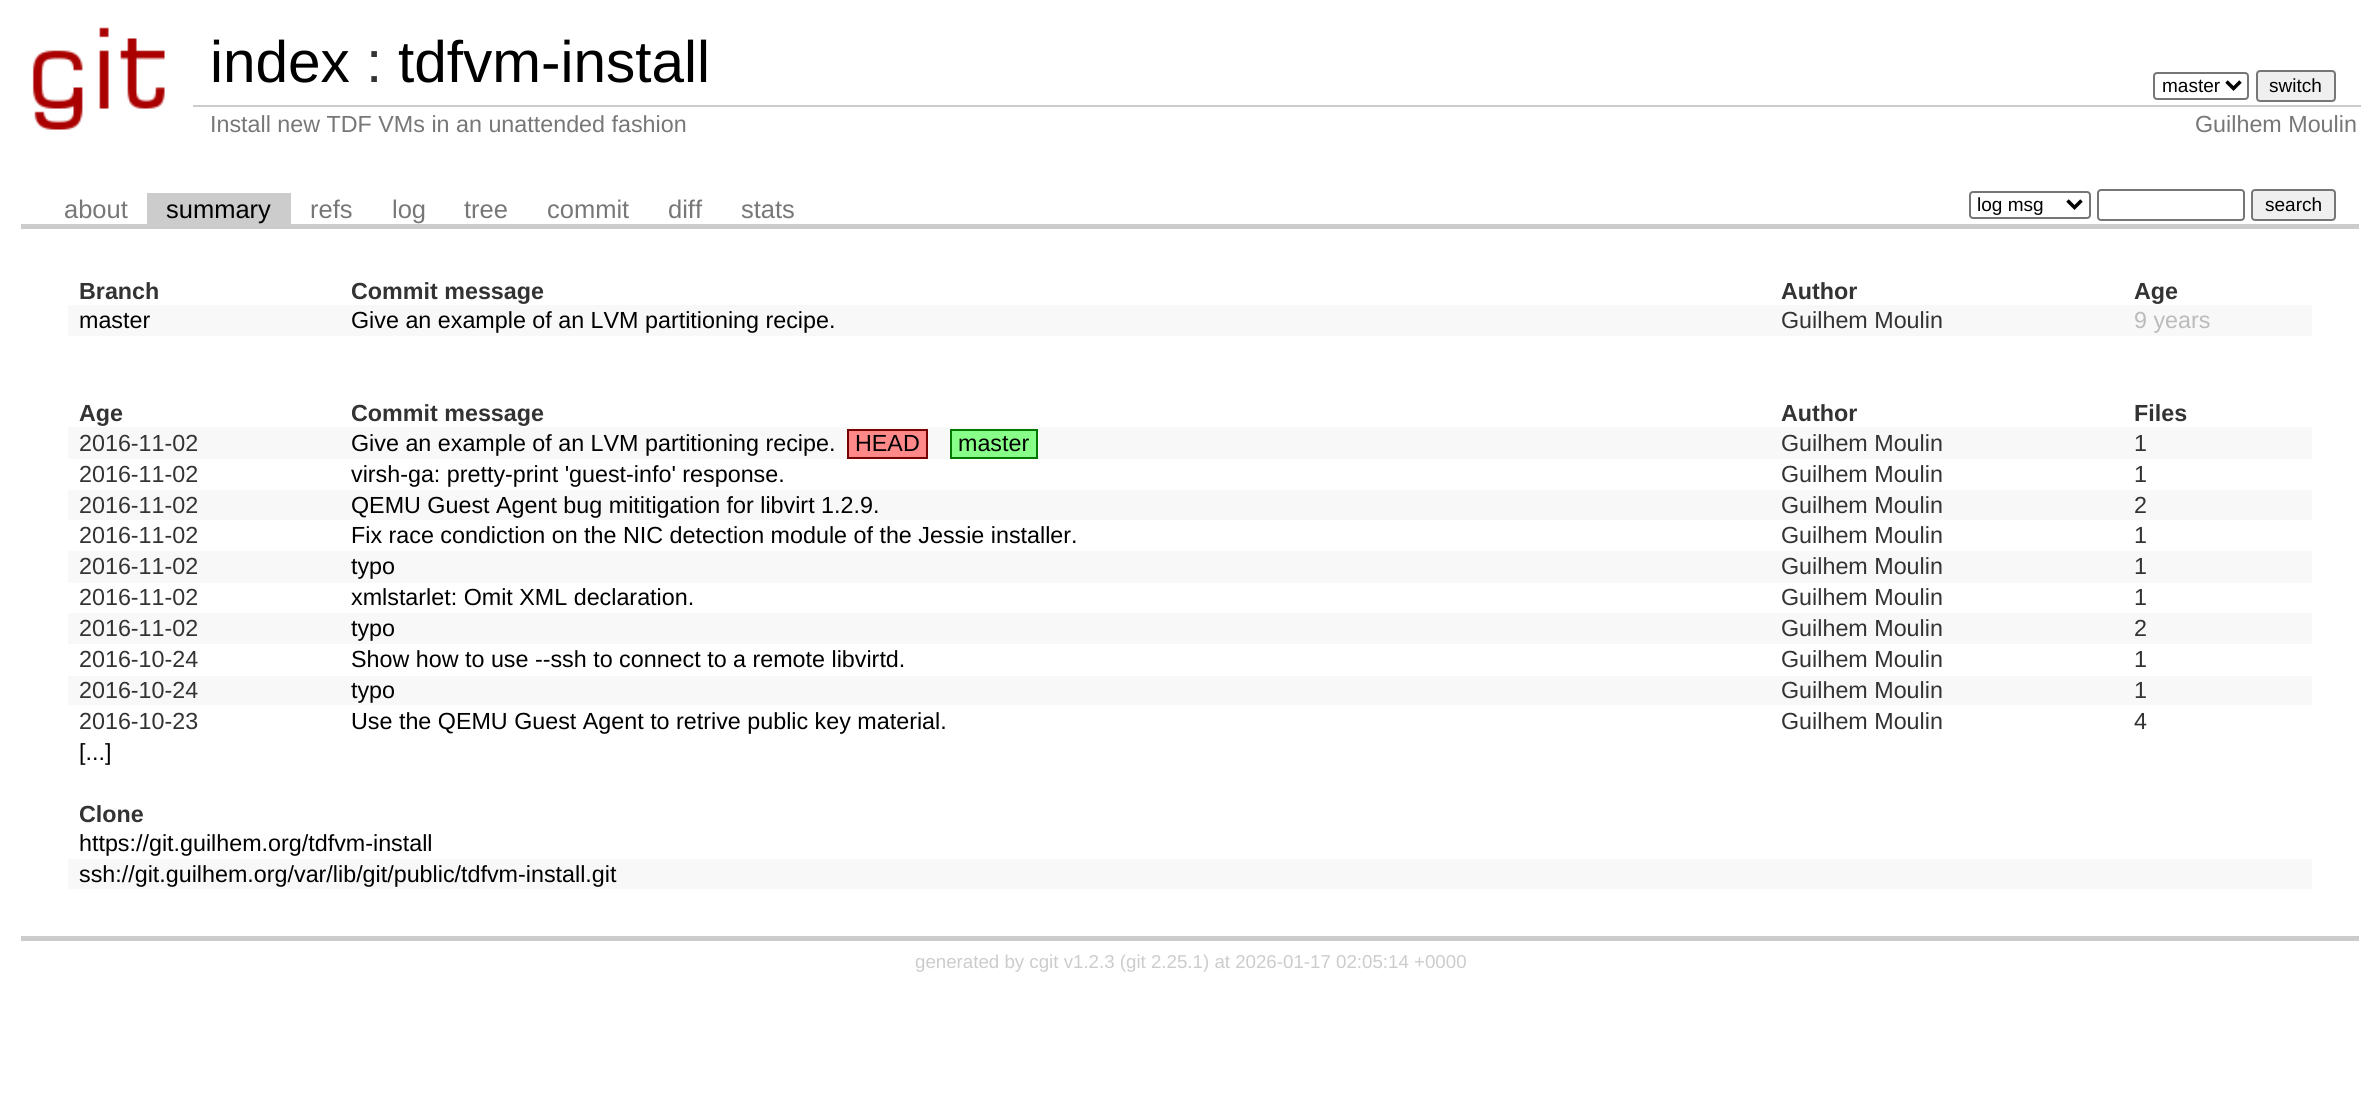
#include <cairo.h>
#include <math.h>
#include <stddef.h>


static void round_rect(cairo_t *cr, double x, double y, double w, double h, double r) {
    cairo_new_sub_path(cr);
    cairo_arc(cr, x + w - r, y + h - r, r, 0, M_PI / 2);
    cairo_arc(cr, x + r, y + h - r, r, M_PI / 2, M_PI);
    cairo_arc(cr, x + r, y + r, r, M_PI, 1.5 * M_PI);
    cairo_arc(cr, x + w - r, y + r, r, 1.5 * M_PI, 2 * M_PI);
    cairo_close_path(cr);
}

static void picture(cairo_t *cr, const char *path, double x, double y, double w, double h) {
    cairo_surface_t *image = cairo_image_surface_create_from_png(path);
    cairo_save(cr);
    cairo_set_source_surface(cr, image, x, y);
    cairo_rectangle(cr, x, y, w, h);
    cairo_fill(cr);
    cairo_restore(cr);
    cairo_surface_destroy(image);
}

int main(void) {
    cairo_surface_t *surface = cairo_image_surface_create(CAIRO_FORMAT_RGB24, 2379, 1115);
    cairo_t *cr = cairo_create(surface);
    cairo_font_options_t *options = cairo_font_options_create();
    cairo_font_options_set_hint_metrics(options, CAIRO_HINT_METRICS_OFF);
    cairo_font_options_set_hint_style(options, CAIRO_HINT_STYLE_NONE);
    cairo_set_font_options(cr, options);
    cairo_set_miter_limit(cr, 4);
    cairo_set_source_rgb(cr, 1, 1, 1);
    cairo_paint(cr);
    picture(cr, "img1.png", 32, 27, 133, 103);
    cairo_select_font_face(cr, "Liberation Sans", CAIRO_FONT_SLANT_NORMAL, CAIRO_FONT_WEIGHT_NORMAL);
    cairo_set_font_size(cr, 58.5);
    cairo_set_source_rgb(cr, 0, 0, 0);
    cairo_move_to(cr, 210, 82);
    cairo_show_text(cr, "index");
    cairo_set_source_rgb(cr, 0.2, 0.2, 0.2);
    cairo_move_to(cr, 366, 82);
    cairo_show_text(cr, ":");
    cairo_set_source_rgb(cr, 0, 0, 0);
    cairo_move_to(cr, 398, 82);
    cairo_show_text(cr, "tdfvm-install");
    round_rect(cr, 2154, 73, 94, 26, 3);
    cairo_set_source_rgb(cr, 0.463, 0.463, 0.463);
    cairo_stroke(cr);
    cairo_new_path(cr);
    cairo_move_to(cr, 2226.5, 81.5);
    cairo_line_to(cr, 2233.5, 88.5);
    cairo_line_to(cr, 2240.5, 81.5);
    cairo_set_source_rgb(cr, 0, 0, 0);
    cairo_set_line_width(cr, 3.5);
    cairo_stroke(cr);
    cairo_set_font_size(cr, 19);
    cairo_move_to(cr, 2162, 92);
    cairo_show_text(cr, "master");
    cairo_set_source_rgb(cr, 0.937, 0.937, 0.937);
    round_rect(cr, 2257, 71, 78, 30, 3);
    cairo_fill_preserve(cr);
    cairo_set_source_rgb(cr, 0.463, 0.463, 0.463);
    cairo_set_line_width(cr, 2);
    cairo_stroke(cr);
    cairo_set_source_rgb(cr, 0, 0, 0);
    cairo_move_to(cr, 2269, 92);
    cairo_show_text(cr, "switch");
    cairo_set_font_size(cr, 23.3);
    cairo_set_source_rgb(cr, 0.467, 0.467, 0.467);
    cairo_move_to(cr, 210, 132);
    cairo_show_text(cr, "Install new TDF VMs in an unattended fashion");
    cairo_set_source_rgb(cr, 0.8, 0.8, 0.8);
    cairo_rectangle(cr, 193, 105, 2168, 2);
    cairo_fill(cr);
    cairo_set_source_rgb(cr, 0.467, 0.467, 0.467);
    cairo_move_to(cr, 2195, 132);
    cairo_show_text(cr, "Guilhem Moulin");
    cairo_set_source_rgb(cr, 0.8, 0.8, 0.8);
    cairo_rectangle(cr, 21, 224, 2338, 5);
    cairo_fill(cr);
    cairo_set_font_size(cr, 25.5);
    cairo_set_source_rgb(cr, 0.467, 0.467, 0.467);
    cairo_move_to(cr, 64, 218);
    cairo_show_text(cr, "about");
    cairo_set_source_rgb(cr, 0.8, 0.8, 0.8);
    cairo_rectangle(cr, 147, 193, 144, 31);
    cairo_fill(cr);
    cairo_set_source_rgb(cr, 0, 0, 0);
    cairo_move_to(cr, 166, 218);
    cairo_show_text(cr, "summary");
    cairo_set_source_rgb(cr, 0.467, 0.467, 0.467);
    cairo_move_to(cr, 310, 218);
    cairo_show_text(cr, "refs");
    cairo_move_to(cr, 392, 218);
    cairo_show_text(cr, "log");
    cairo_move_to(cr, 464, 218);
    cairo_show_text(cr, "tree");
    cairo_move_to(cr, 547, 218);
    cairo_show_text(cr, "commit");
    cairo_move_to(cr, 668, 218);
    cairo_show_text(cr, "diff");
    cairo_move_to(cr, 741, 218);
    cairo_show_text(cr, "stats");
    round_rect(cr, 1970, 192, 120, 26, 3);
    cairo_set_source_rgb(cr, 0.463, 0.463, 0.463);
    cairo_stroke(cr);
    cairo_new_path(cr);
    cairo_move_to(cr, 2067.5, 200.5);
    cairo_line_to(cr, 2074.5, 207.5);
    cairo_line_to(cr, 2081.5, 200.5);
    cairo_set_source_rgb(cr, 0, 0, 0);
    cairo_set_line_width(cr, 3.5);
    cairo_stroke(cr);
    cairo_set_font_size(cr, 19);
    cairo_move_to(cr, 1977, 211);
    cairo_show_text(cr, "log msg");
    round_rect(cr, 2098, 190, 146, 30, 3);
    cairo_set_source_rgb(cr, 0.463, 0.463, 0.463);
    cairo_set_line_width(cr, 2);
    cairo_stroke(cr);
    cairo_set_source_rgb(cr, 0.937, 0.937, 0.937);
    round_rect(cr, 2252, 190, 83, 30, 3);
    cairo_fill_preserve(cr);
    cairo_set_source_rgb(cr, 0.463, 0.463, 0.463);
    cairo_stroke(cr);
    cairo_set_source_rgb(cr, 0, 0, 0);
    cairo_move_to(cr, 2265, 211);
    cairo_show_text(cr, "search");
    cairo_set_source_rgb(cr, 0.8, 0.8, 0.8);
    cairo_rectangle(cr, 21, 936, 2338, 5);
    cairo_fill(cr);
    cairo_select_font_face(cr, "Liberation Sans", CAIRO_FONT_SLANT_NORMAL, CAIRO_FONT_WEIGHT_BOLD);
    cairo_set_font_size(cr, 23.3);
    cairo_set_source_rgb(cr, 0.2, 0.2, 0.2);
    cairo_move_to(cr, 79, 299);
    cairo_show_text(cr, "Branch");
    cairo_move_to(cr, 351, 299);
    cairo_show_text(cr, "Commit message");
    cairo_move_to(cr, 1781, 299);
    cairo_show_text(cr, "Author");
    cairo_move_to(cr, 2134, 299);
    cairo_show_text(cr, "Age");
    cairo_set_source_rgb(cr, 0.969, 0.969, 0.969);
    cairo_rectangle(cr, 68, 305, 2244, 31);
    cairo_fill(cr);
    cairo_select_font_face(cr, "Liberation Sans", CAIRO_FONT_SLANT_NORMAL, CAIRO_FONT_WEIGHT_NORMAL);
    cairo_set_source_rgb(cr, 0, 0, 0);
    cairo_move_to(cr, 79, 328);
    cairo_show_text(cr, "master");
    cairo_move_to(cr, 351, 328);
    cairo_show_text(cr, "Give an example of an LVM partitioning recipe.");
    cairo_set_source_rgb(cr, 0.2, 0.2, 0.2);
    cairo_move_to(cr, 1781, 328);
    cairo_show_text(cr, "Guilhem Moulin");
    cairo_set_source_rgb(cr, 0.733, 0.733, 0.733);
    cairo_move_to(cr, 2134, 328);
    cairo_show_text(cr, "9 years");
    cairo_select_font_face(cr, "Liberation Sans", CAIRO_FONT_SLANT_NORMAL, CAIRO_FONT_WEIGHT_BOLD);
    cairo_set_source_rgb(cr, 0.2, 0.2, 0.2);
    cairo_move_to(cr, 79, 421);
    cairo_show_text(cr, "Age");
    cairo_move_to(cr, 351, 421);
    cairo_show_text(cr, "Commit message");
    cairo_move_to(cr, 1781, 421);
    cairo_show_text(cr, "Author");
    cairo_move_to(cr, 2134, 421);
    cairo_show_text(cr, "Files");
    cairo_set_source_rgb(cr, 0.969, 0.969, 0.969);
    cairo_rectangle(cr, 68, 427, 2244, 32);
    cairo_fill(cr);
    cairo_select_font_face(cr, "Liberation Sans", CAIRO_FONT_SLANT_NORMAL, CAIRO_FONT_WEIGHT_NORMAL);
    cairo_set_source_rgb(cr, 0.2, 0.2, 0.2);
    cairo_move_to(cr, 79, 451);
    cairo_show_text(cr, "2016-11-02");
    cairo_set_source_rgb(cr, 0, 0, 0);
    cairo_move_to(cr, 351, 451);
    cairo_show_text(cr, "Give an example of an LVM partitioning recipe.");
    cairo_set_source_rgb(cr, 1, 0.533, 0.533);
    cairo_rectangle(cr, 848, 430, 79, 28);
    cairo_fill_preserve(cr);
    cairo_set_source_rgb(cr, 0.467, 0, 0);
    cairo_stroke(cr);
    cairo_set_source_rgb(cr, 0, 0, 0);
    cairo_move_to(cr, 855, 451);
    cairo_show_text(cr, "HEAD");
    cairo_set_source_rgb(cr, 0.533, 1, 0.533);
    cairo_rectangle(cr, 951, 430, 86, 28);
    cairo_fill_preserve(cr);
    cairo_set_source_rgb(cr, 0, 0.467, 0);
    cairo_stroke(cr);
    cairo_set_source_rgb(cr, 0, 0, 0);
    cairo_move_to(cr, 958, 451);
    cairo_show_text(cr, "master");
    cairo_set_source_rgb(cr, 0.2, 0.2, 0.2);
    cairo_move_to(cr, 1781, 451);
    cairo_show_text(cr, "Guilhem Moulin");
    cairo_move_to(cr, 2134, 451);
    cairo_show_text(cr, "1");
    cairo_move_to(cr, 79, 482);
    cairo_show_text(cr, "2016-11-02");
    cairo_set_source_rgb(cr, 0, 0, 0);
    cairo_move_to(cr, 351, 482);
    cairo_show_text(cr, "virsh-ga: pretty-print 'guest-info' response.");
    cairo_set_source_rgb(cr, 0.2, 0.2, 0.2);
    cairo_move_to(cr, 1781, 482);
    cairo_show_text(cr, "Guilhem Moulin");
    cairo_move_to(cr, 2134, 482);
    cairo_show_text(cr, "1");
    cairo_set_source_rgb(cr, 0.969, 0.969, 0.969);
    cairo_rectangle(cr, 68, 490, 2244, 30);
    cairo_fill(cr);
    cairo_set_source_rgb(cr, 0.2, 0.2, 0.2);
    cairo_move_to(cr, 79, 513);
    cairo_show_text(cr, "2016-11-02");
    cairo_set_source_rgb(cr, 0, 0, 0);
    cairo_move_to(cr, 351, 513);
    cairo_show_text(cr, "QEMU Guest Agent bug mititigation for libvirt 1.2.9.");
    cairo_set_source_rgb(cr, 0.2, 0.2, 0.2);
    cairo_move_to(cr, 1781, 513);
    cairo_show_text(cr, "Guilhem Moulin");
    cairo_move_to(cr, 2134, 513);
    cairo_show_text(cr, "2");
    cairo_move_to(cr, 79, 543);
    cairo_show_text(cr, "2016-11-02");
    cairo_set_source_rgb(cr, 0, 0, 0);
    cairo_move_to(cr, 351, 543);
    cairo_show_text(cr, "Fix race condiction on the NIC detection module of the Jessie installer.");
    cairo_set_source_rgb(cr, 0.2, 0.2, 0.2);
    cairo_move_to(cr, 1781, 543);
    cairo_show_text(cr, "Guilhem Moulin");
    cairo_move_to(cr, 2134, 543);
    cairo_show_text(cr, "1");
    cairo_set_source_rgb(cr, 0.969, 0.969, 0.969);
    cairo_rectangle(cr, 68, 551, 2244, 32);
    cairo_fill(cr);
    cairo_set_source_rgb(cr, 0.2, 0.2, 0.2);
    cairo_move_to(cr, 79, 574);
    cairo_show_text(cr, "2016-11-02");
    cairo_set_source_rgb(cr, 0, 0, 0);
    cairo_move_to(cr, 351, 574);
    cairo_show_text(cr, "typo");
    cairo_set_source_rgb(cr, 0.2, 0.2, 0.2);
    cairo_move_to(cr, 1781, 574);
    cairo_show_text(cr, "Guilhem Moulin");
    cairo_move_to(cr, 2134, 574);
    cairo_show_text(cr, "1");
    cairo_move_to(cr, 79, 605);
    cairo_show_text(cr, "2016-11-02");
    cairo_set_source_rgb(cr, 0, 0, 0);
    cairo_move_to(cr, 351, 605);
    cairo_show_text(cr, "xmlstarlet: Omit XML declaration.");
    cairo_set_source_rgb(cr, 0.2, 0.2, 0.2);
    cairo_move_to(cr, 1781, 605);
    cairo_show_text(cr, "Guilhem Moulin");
    cairo_move_to(cr, 2134, 605);
    cairo_show_text(cr, "1");
    cairo_set_source_rgb(cr, 0.969, 0.969, 0.969);
    cairo_rectangle(cr, 68, 613, 2244, 31);
    cairo_fill(cr);
    cairo_set_source_rgb(cr, 0.2, 0.2, 0.2);
    cairo_move_to(cr, 79, 636);
    cairo_show_text(cr, "2016-11-02");
    cairo_set_source_rgb(cr, 0, 0, 0);
    cairo_move_to(cr, 351, 636);
    cairo_show_text(cr, "typo");
    cairo_set_source_rgb(cr, 0.2, 0.2, 0.2);
    cairo_move_to(cr, 1781, 636);
    cairo_show_text(cr, "Guilhem Moulin");
    cairo_move_to(cr, 2134, 636);
    cairo_show_text(cr, "2");
    cairo_move_to(cr, 79, 667);
    cairo_show_text(cr, "2016-10-24");
    cairo_set_source_rgb(cr, 0, 0, 0);
    cairo_move_to(cr, 351, 667);
    cairo_show_text(cr, "Show how to use --ssh to connect to a remote libvirtd.");
    cairo_set_source_rgb(cr, 0.2, 0.2, 0.2);
    cairo_move_to(cr, 1781, 667);
    cairo_show_text(cr, "Guilhem Moulin");
    cairo_move_to(cr, 2134, 667);
    cairo_show_text(cr, "1");
    cairo_set_source_rgb(cr, 0.969, 0.969, 0.969);
    cairo_rectangle(cr, 68, 676, 2244, 29);
    cairo_fill(cr);
    cairo_set_source_rgb(cr, 0.2, 0.2, 0.2);
    cairo_move_to(cr, 79, 698);
    cairo_show_text(cr, "2016-10-24");
    cairo_set_source_rgb(cr, 0, 0, 0);
    cairo_move_to(cr, 351, 698);
    cairo_show_text(cr, "typo");
    cairo_set_source_rgb(cr, 0.2, 0.2, 0.2);
    cairo_move_to(cr, 1781, 698);
    cairo_show_text(cr, "Guilhem Moulin");
    cairo_move_to(cr, 2134, 698);
    cairo_show_text(cr, "1");
    cairo_move_to(cr, 79, 729);
    cairo_show_text(cr, "2016-10-23");
    cairo_set_source_rgb(cr, 0, 0, 0);
    cairo_move_to(cr, 351, 729);
    cairo_show_text(cr, "Use the QEMU Guest Agent to retrive public key material.");
    cairo_set_source_rgb(cr, 0.2, 0.2, 0.2);
    cairo_move_to(cr, 1781, 729);
    cairo_show_text(cr, "Guilhem Moulin");
    cairo_move_to(cr, 2134, 729);
    cairo_show_text(cr, "4");
    cairo_set_source_rgb(cr, 0, 0, 0);
    cairo_move_to(cr, 79, 760);
    cairo_show_text(cr, "[...]");
    cairo_select_font_face(cr, "Liberation Sans", CAIRO_FONT_SLANT_NORMAL, CAIRO_FONT_WEIGHT_BOLD);
    cairo_set_source_rgb(cr, 0.2, 0.2, 0.2);
    cairo_move_to(cr, 79, 822);
    cairo_show_text(cr, "Clone");
    cairo_select_font_face(cr, "Liberation Sans", CAIRO_FONT_SLANT_NORMAL, CAIRO_FONT_WEIGHT_NORMAL);
    cairo_set_source_rgb(cr, 0, 0, 0);
    cairo_move_to(cr, 79, 851);
    cairo_show_text(cr, "https://git.guilhem.org/tdfvm-install");
    cairo_set_source_rgb(cr, 0.969, 0.969, 0.969);
    cairo_rectangle(cr, 68, 859, 2244, 30);
    cairo_fill(cr);
    cairo_set_source_rgb(cr, 0, 0, 0);
    cairo_move_to(cr, 79, 882);
    cairo_show_text(cr, "ssh://git.guilhem.org/var/lib/git/public/tdfvm-install.git");
    cairo_set_font_size(cr, 18.7);
    cairo_set_source_rgb(cr, 0.8, 0.8, 0.8);
    cairo_move_to(cr, 915, 968);
    cairo_show_text(cr, "generated by cgit v1.2.3 (git 2.25.1) at 2026-01-17 02:05:14 +0000");
    cairo_surface_write_to_png(surface, "page.png");
    cairo_font_options_destroy(options);
    cairo_destroy(cr);
    cairo_surface_destroy(surface);
    return 0;
}
